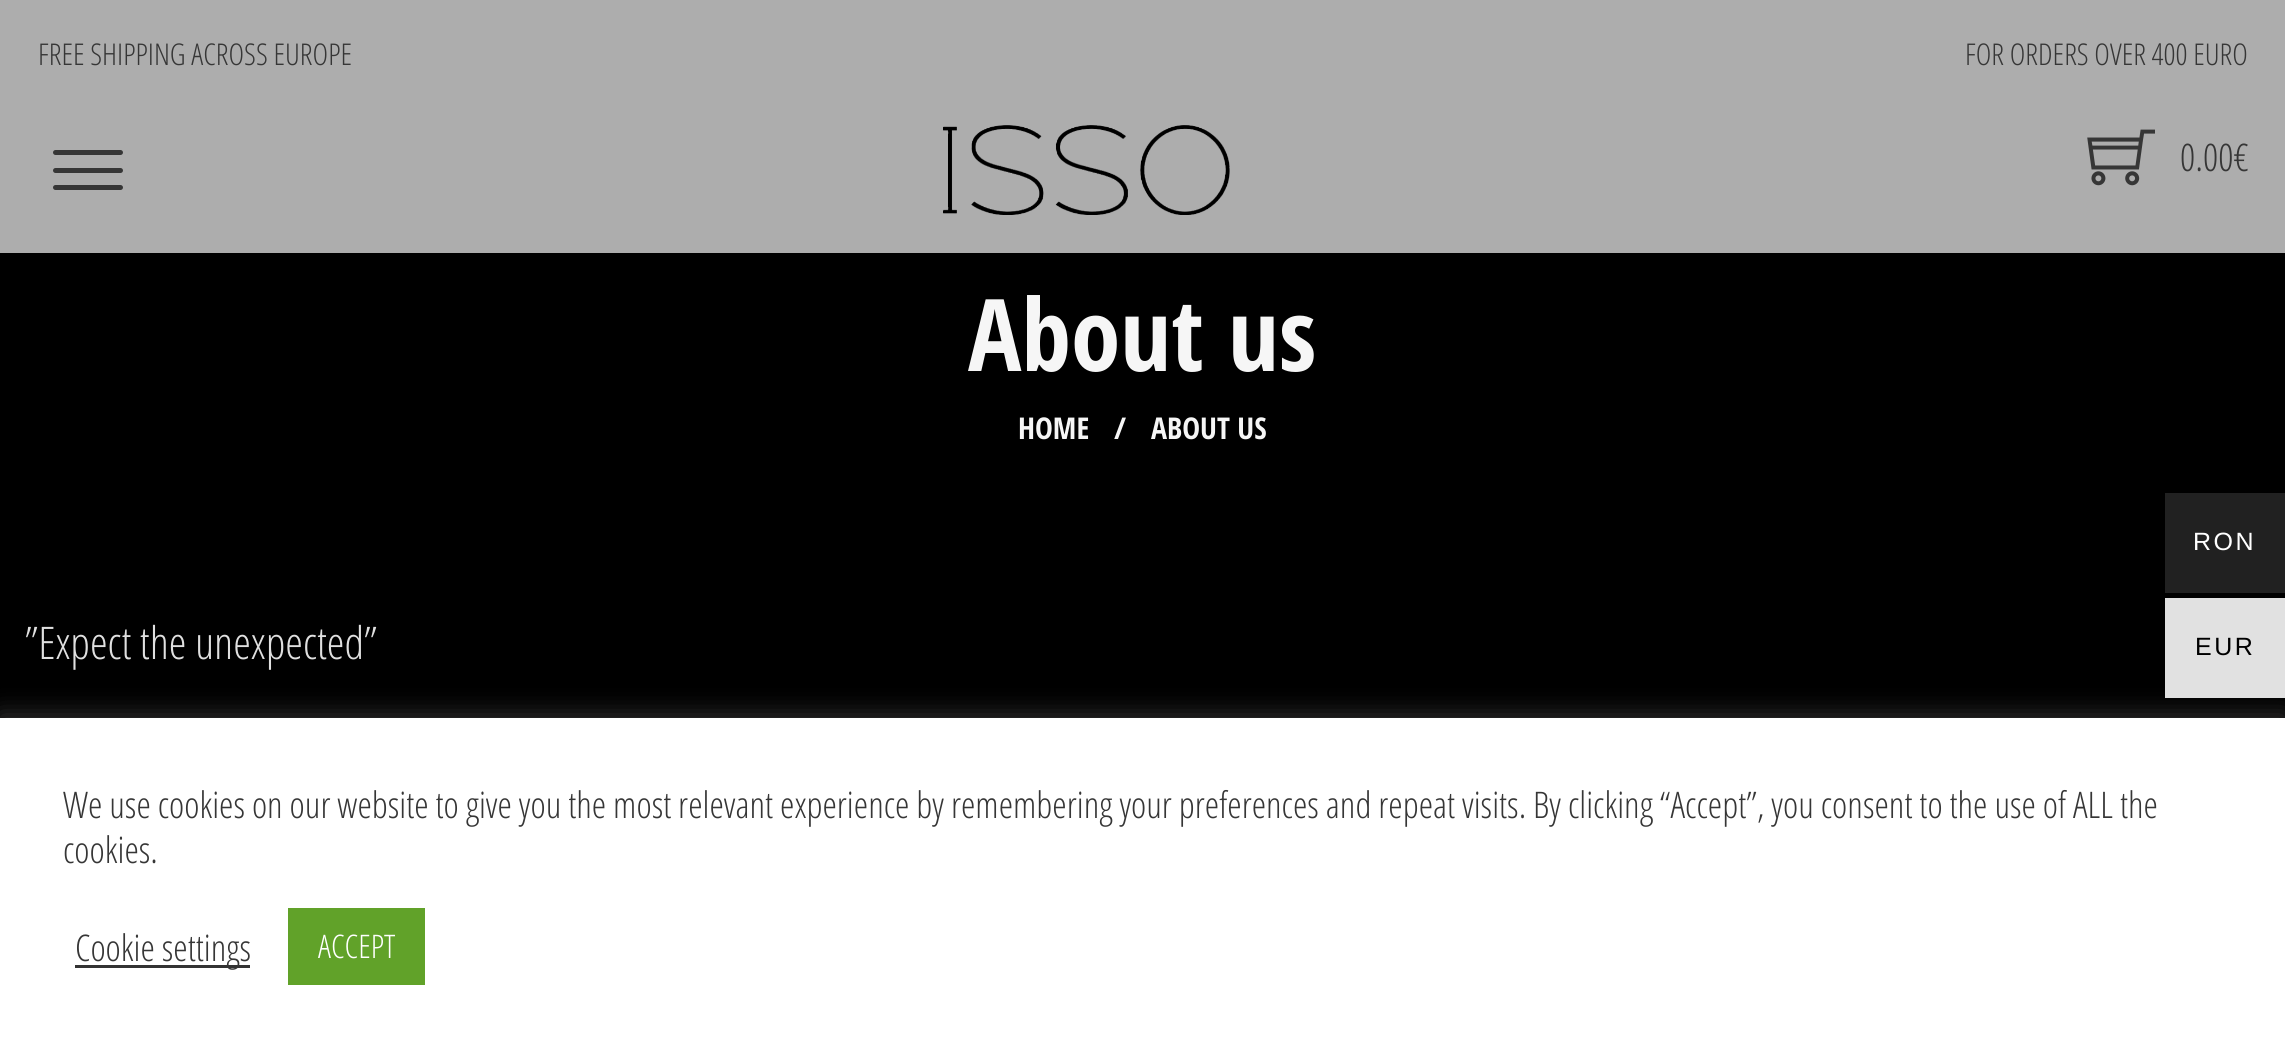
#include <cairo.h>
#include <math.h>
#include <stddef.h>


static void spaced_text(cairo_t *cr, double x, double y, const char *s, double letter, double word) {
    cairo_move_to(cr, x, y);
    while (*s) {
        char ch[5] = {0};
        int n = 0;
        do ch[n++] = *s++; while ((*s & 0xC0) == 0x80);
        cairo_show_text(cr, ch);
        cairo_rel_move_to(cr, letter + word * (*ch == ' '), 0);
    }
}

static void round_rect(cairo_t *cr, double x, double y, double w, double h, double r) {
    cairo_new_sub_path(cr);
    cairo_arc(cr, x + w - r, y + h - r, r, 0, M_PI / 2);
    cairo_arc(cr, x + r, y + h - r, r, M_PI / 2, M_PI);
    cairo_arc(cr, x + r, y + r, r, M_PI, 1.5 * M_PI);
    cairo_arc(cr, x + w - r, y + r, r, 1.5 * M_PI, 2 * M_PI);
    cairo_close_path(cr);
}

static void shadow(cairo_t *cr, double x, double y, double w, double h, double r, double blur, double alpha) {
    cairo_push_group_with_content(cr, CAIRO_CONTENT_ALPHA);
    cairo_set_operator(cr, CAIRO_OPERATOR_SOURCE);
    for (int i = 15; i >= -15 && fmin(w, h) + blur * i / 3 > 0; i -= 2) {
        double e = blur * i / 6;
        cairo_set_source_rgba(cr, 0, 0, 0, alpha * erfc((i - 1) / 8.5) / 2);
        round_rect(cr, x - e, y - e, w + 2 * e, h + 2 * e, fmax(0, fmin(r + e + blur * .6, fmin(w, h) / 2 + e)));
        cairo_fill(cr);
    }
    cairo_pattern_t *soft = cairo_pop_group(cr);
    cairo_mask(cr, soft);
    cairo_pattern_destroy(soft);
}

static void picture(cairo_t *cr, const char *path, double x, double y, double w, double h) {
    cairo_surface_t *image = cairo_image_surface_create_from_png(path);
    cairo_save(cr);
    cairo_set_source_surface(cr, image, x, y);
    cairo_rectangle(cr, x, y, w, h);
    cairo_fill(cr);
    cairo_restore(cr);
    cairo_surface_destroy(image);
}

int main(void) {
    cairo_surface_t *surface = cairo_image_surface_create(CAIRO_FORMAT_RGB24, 2285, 1060);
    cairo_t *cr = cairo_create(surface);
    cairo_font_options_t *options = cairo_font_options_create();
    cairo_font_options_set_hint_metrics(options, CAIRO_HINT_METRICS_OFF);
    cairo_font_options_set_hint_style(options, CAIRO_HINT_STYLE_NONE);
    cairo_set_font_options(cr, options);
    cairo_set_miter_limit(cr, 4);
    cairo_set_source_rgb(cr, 0, 0, 0);
    cairo_paint(cr);
    cairo_set_source_rgb(cr, 0.678, 0.678, 0.678);
    cairo_rectangle(cr, 0, 0, 2285, 253);
    cairo_fill(cr);
    cairo_select_font_face(cr, "Open Sans Light", CAIRO_FONT_SLANT_NORMAL, CAIRO_FONT_WEIGHT_NORMAL);
    cairo_set_font_size(cr, 30);
    cairo_set_source_rgb(cr, 0.212, 0.212, 0.212);
    cairo_move_to(cr, 38, 65);
    cairo_show_text(cr, "FREE SHIPPING ACROSS EUROPE");
    cairo_move_to(cr, 1965, 65);
    cairo_show_text(cr, "FOR ORDERS OVER 400 EURO");
    round_rect(cr, 53, 168, 70, 5, 2.5);
    cairo_fill(cr);
    round_rect(cr, 53, 150, 70, 5, 2.5);
    cairo_fill(cr);
    round_rect(cr, 53, 185, 70, 5, 2.5);
    cairo_fill(cr);
    picture(cr, "img1.png", 943, 125, 287, 90);
    picture(cr, "img2.png", 2087, 129, 68, 57);
    cairo_set_font_size(cr, 38);
    cairo_move_to(cr, 2180, 171);
    cairo_show_text(cr, "0.00€");
    cairo_select_font_face(cr, "Open Sans Condensed", CAIRO_FONT_SLANT_NORMAL, CAIRO_FONT_WEIGHT_BOLD);
    cairo_set_font_size(cr, 100);
    cairo_set_source_rgb(cr, 0.961, 0.961, 0.961);
    cairo_move_to(cr, 968, 371);
    cairo_show_text(cr, "About us");
    cairo_set_font_size(cr, 30);
    cairo_move_to(cr, 1018, 439);
    cairo_show_text(cr, "HOME");
    cairo_move_to(cr, 1114, 439);
    cairo_show_text(cr, "/");
    cairo_move_to(cr, 1151, 439);
    cairo_show_text(cr, "ABOUT US");
    cairo_select_font_face(cr, "Open Sans Light", CAIRO_FONT_SLANT_NORMAL, CAIRO_FONT_WEIGHT_NORMAL);
    cairo_set_font_size(cr, 45);
    cairo_set_source_rgb(cr, 0.878, 0.878, 0.878);
    cairo_move_to(cr, 25, 659);
    cairo_show_text(cr, "”Expect the unexpected”");
    cairo_set_source_rgb(cr, 0.129, 0.129, 0.129);
    cairo_rectangle(cr, 2165, 493, 120, 100);
    cairo_fill(cr);
    cairo_select_font_face(cr, "Liberation Sans", CAIRO_FONT_SLANT_NORMAL, CAIRO_FONT_WEIGHT_NORMAL);
    cairo_set_font_size(cr, 25);
    cairo_set_source_rgb(cr, 1, 1, 1);
    spaced_text(cr, 2193, 550, "RON", 2.5, 0);
    cairo_set_source_rgb(cr, 0.675, 0.671, 0.671);
    shadow(cr, 0, 715, 2285, 343, 0, 12.5, 0.3);
    cairo_set_source_rgb(cr, 0.882, 0.882, 0.882);
    cairo_rectangle(cr, 2165, 598, 120, 100);
    cairo_fill(cr);
    cairo_set_source_rgb(cr, 0, 0, 0);
    spaced_text(cr, 2195, 655, "EUR", 2.5, 0);
    cairo_set_source_rgb(cr, 1, 1, 1);
    cairo_rectangle(cr, 0, 718, 2285, 342);
    cairo_fill(cr);
    cairo_select_font_face(cr, "Open Sans Light", CAIRO_FONT_SLANT_NORMAL, CAIRO_FONT_WEIGHT_NORMAL);
    cairo_set_font_size(cr, 36.67);
    cairo_set_source_rgb(cr, 0.212, 0.212, 0.212);
    cairo_move_to(cr, 63, 818);
    cairo_show_text(cr, "We use cookies on our website to give you the most relevant experience by remembering your preferences and repeat visits. By clicking “Accept”, you consent to the use of ALL the");
    cairo_move_to(cr, 63, 863);
    cairo_show_text(cr, "cookies.");
    cairo_set_source_rgb(cr, 0.2, 0.2, 0.2);
    cairo_rectangle(cr, 75, 965, 175, 3);
    cairo_fill(cr);
    cairo_set_source_rgb(cr, 0.212, 0.212, 0.212);
    cairo_move_to(cr, 75, 961);
    cairo_show_text(cr, "Cookie settings");
    cairo_set_source_rgb(cr, 0.38, 0.635, 0.161);
    cairo_rectangle(cr, 288, 908, 137, 77);
    cairo_fill(cr);
    cairo_set_font_size(cr, 32.5);
    cairo_set_source_rgb(cr, 1, 1, 1);
    cairo_move_to(cr, 318, 958);
    cairo_show_text(cr, "ACCEPT");
    cairo_surface_write_to_png(surface, "page.png");
    cairo_font_options_destroy(options);
    cairo_destroy(cr);
    cairo_surface_destroy(surface);
    return 0;
}
